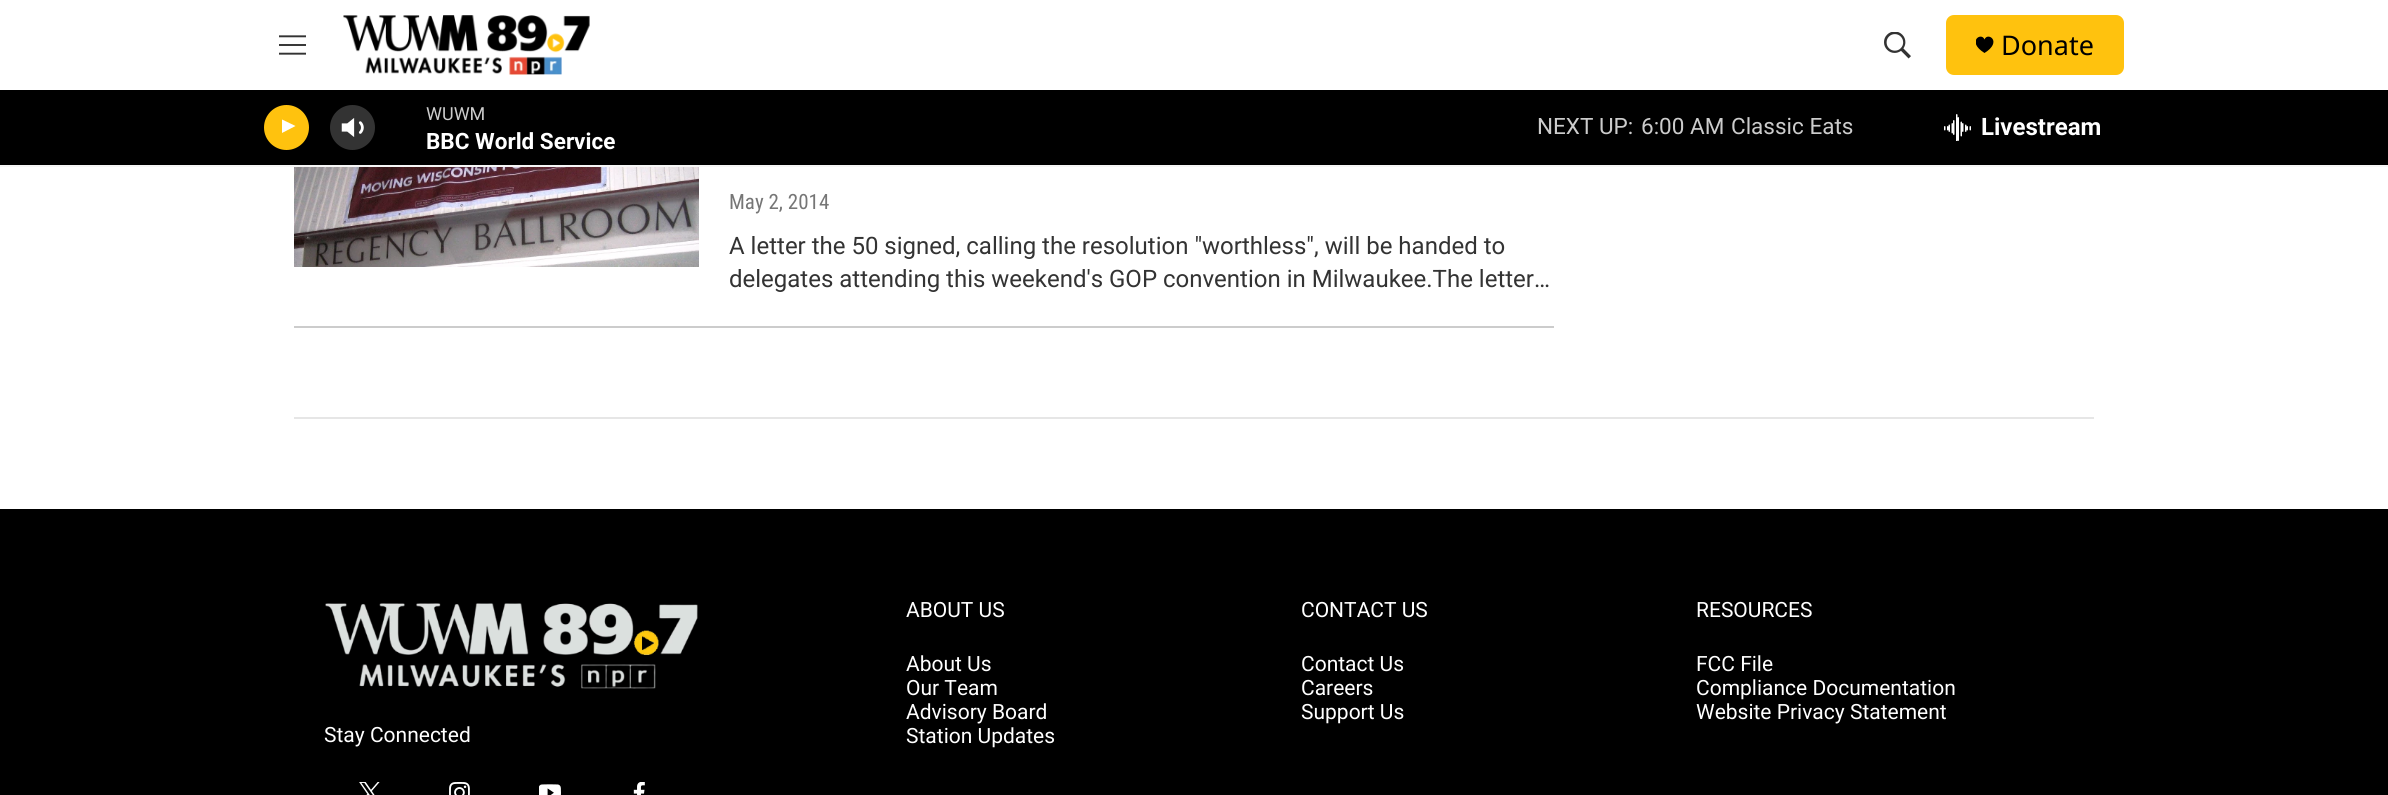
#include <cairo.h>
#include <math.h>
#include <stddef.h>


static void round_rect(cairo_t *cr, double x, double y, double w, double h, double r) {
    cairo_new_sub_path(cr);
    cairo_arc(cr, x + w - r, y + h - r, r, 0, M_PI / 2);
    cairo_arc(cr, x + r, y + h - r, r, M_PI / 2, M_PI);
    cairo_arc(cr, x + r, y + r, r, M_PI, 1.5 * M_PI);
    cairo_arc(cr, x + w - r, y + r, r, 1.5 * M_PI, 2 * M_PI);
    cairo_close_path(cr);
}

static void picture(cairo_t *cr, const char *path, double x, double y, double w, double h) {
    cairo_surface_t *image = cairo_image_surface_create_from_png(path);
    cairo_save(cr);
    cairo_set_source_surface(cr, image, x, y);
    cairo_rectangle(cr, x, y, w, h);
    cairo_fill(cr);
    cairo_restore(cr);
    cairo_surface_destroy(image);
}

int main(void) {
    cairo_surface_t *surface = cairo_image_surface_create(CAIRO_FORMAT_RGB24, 2388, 795);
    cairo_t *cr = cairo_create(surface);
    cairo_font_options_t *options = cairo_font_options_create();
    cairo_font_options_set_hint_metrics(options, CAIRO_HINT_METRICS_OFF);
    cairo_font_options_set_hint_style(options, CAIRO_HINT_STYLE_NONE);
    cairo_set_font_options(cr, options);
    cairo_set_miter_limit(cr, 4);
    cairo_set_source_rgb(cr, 1, 1, 1);
    cairo_paint(cr);
    cairo_set_source_rgb(cr, 0.961, 0.961, 0.961);
    cairo_rectangle(cr, 0, 165, 2388, 2);
    cairo_fill(cr);
    picture(cr, "img1.png", 279, 35, 27, 20);
    picture(cr, "img2.png", 343, 15, 247, 60);
    picture(cr, "img3.png", 1884, 32, 27, 27);
    cairo_set_source_rgb(cr, 1, 0.761, 0.055);
    round_rect(cr, 1946, 15, 178, 60, 8);
    cairo_fill(cr);
    cairo_save(cr);
    cairo_rectangle(cr, 1976, 36, 18, 18);
    cairo_clip(cr);
    cairo_set_source_rgb(cr, 0, 0, 0);
    cairo_new_path(cr);
    cairo_move_to(cr, 1984.5, 39.5);
    cairo_curve_to(cr, 1981.5, 31.5, 1966, 41.5, 1984.5, 53);
    cairo_curve_to(cr, 2003, 41.5, 1987.5, 31.5, 1984.5, 39.5);
    cairo_close_path(cr);
    cairo_fill(cr);
    cairo_restore(cr);
    cairo_select_font_face(cr, "Noto Sans", CAIRO_FONT_SLANT_NORMAL, CAIRO_FONT_WEIGHT_NORMAL);
    cairo_set_font_size(cr, 27);
    cairo_set_source_rgb(cr, 0, 0, 0);
    cairo_move_to(cr, 2001, 55);
    cairo_show_text(cr, "Donate");
    cairo_rectangle(cr, 0, 90, 2388, 75);
    cairo_fill(cr);
    cairo_set_source_rgb(cr, 1, 0.761, 0.055);
    cairo_arc(cr, 286.5, 127.5, 22.5, 0, 2 * M_PI);
    cairo_fill(cr);
    cairo_save(cr);
    cairo_rectangle(cr, 282, 117, 17, 23);
    cairo_clip(cr);
    cairo_set_source_rgb(cr, 1, 1, 1);
    cairo_new_path(cr);
    cairo_move_to(cr, 281, 119);
    cairo_line_to(cr, 295.5, 126);
    cairo_line_to(cr, 281, 133.5);
    cairo_close_path(cr);
    cairo_fill(cr);
    cairo_restore(cr);
    picture(cr, "img4.png", 341, 118, 23, 19);
    cairo_set_source_rgba(cr, 1, 1, 1, 0.2);
    cairo_arc(cr, 352.5, 127.5, 22.5, 0, 2 * M_PI);
    cairo_fill(cr);
    cairo_select_font_face(cr, "Roboto", CAIRO_FONT_SLANT_NORMAL, CAIRO_FONT_WEIGHT_NORMAL);
    cairo_set_font_size(cr, 18);
    cairo_set_source_rgb(cr, 0.8, 0.8, 0.8);
    cairo_move_to(cr, 426, 120);
    cairo_show_text(cr, "WUWM");
    cairo_select_font_face(cr, "Roboto", CAIRO_FONT_SLANT_NORMAL, CAIRO_FONT_WEIGHT_BOLD);
    cairo_set_font_size(cr, 22.5);
    cairo_set_source_rgb(cr, 1, 1, 1);
    cairo_move_to(cr, 426, 149);
    cairo_show_text(cr, "BBC World Service");
    cairo_select_font_face(cr, "Roboto", CAIRO_FONT_SLANT_NORMAL, CAIRO_FONT_WEIGHT_NORMAL);
    cairo_set_source_rgb(cr, 0.8, 0.8, 0.8);
    cairo_move_to(cr, 1537, 134);
    cairo_show_text(cr, "NEXT UP:");
    cairo_move_to(cr, 1641, 134);
    cairo_show_text(cr, "6:00 AM");
    cairo_move_to(cr, 1731, 134);
    cairo_show_text(cr, "Classic Eats");
    picture(cr, "img5.png", 1944, 114, 27, 27);
    cairo_select_font_face(cr, "Roboto", CAIRO_FONT_SLANT_NORMAL, CAIRO_FONT_WEIGHT_BOLD);
    cairo_set_font_size(cr, 24);
    cairo_set_source_rgb(cr, 1, 1, 1);
    cairo_move_to(cr, 1981, 135);
    cairo_show_text(cr, "Livestream");
    cairo_set_source_rgb(cr, 0.8, 0.8, 0.8);
    cairo_rectangle(cr, 294, 326, 1260, 2);
    cairo_fill(cr);
    picture(cr, "img6.png", 294, 167, 405, 100);
    cairo_select_font_face(cr, "Roboto Condensed", CAIRO_FONT_SLANT_NORMAL, CAIRO_FONT_WEIGHT_NORMAL);
    cairo_set_font_size(cr, 21);
    cairo_set_source_rgb(cr, 0.463, 0.463, 0.463);
    cairo_move_to(cr, 729, 209);
    cairo_show_text(cr, "May 2, 2014");
    cairo_select_font_face(cr, "Roboto", CAIRO_FONT_SLANT_NORMAL, CAIRO_FONT_WEIGHT_NORMAL);
    cairo_set_font_size(cr, 24);
    cairo_set_source_rgb(cr, 0.2, 0.2, 0.2);
    cairo_move_to(cr, 729, 254);
    cairo_show_text(cr, "A letter the 50 signed, calling the resolution \"worthless\", will be handed to");
    cairo_move_to(cr, 729, 287);
    cairo_show_text(cr, "delegates attending this weekend's GOP convention in Milwaukee.The letter…");
    cairo_set_source_rgb(cr, 0.902, 0.902, 0.902);
    cairo_rectangle(cr, 294, 417, 1800, 2);
    cairo_fill(cr);
    cairo_set_source_rgb(cr, 0, 0, 0);
    cairo_rectangle(cr, 0, 509, 2388, 286);
    cairo_fill(cr);
    picture(cr, "img7.png", 325, 603, 373, 86);
    cairo_set_font_size(cr, 21);
    cairo_set_source_rgb(cr, 1, 1, 1);
    cairo_move_to(cr, 324, 742);
    cairo_show_text(cr, "Stay Connected");
    picture(cr, "img8.png", 359, 782, 21, 13);
    picture(cr, "img9.png", 449, 782, 21, 13);
    picture(cr, "img10.png", 539, 784, 22, 11);
    picture(cr, "img11.png", 633, 782, 12, 13);
    cairo_move_to(cr, 906, 617);
    cairo_show_text(cr, "ABOUT US");
    cairo_move_to(cr, 906, 671);
    cairo_show_text(cr, "About Us");
    cairo_move_to(cr, 906, 695);
    cairo_show_text(cr, "Our Team");
    cairo_move_to(cr, 906, 719);
    cairo_show_text(cr, "Advisory Board");
    cairo_move_to(cr, 906, 743);
    cairo_show_text(cr, "Station Updates");
    cairo_move_to(cr, 1301, 617);
    cairo_show_text(cr, "CONTACT US");
    cairo_move_to(cr, 1301, 671);
    cairo_show_text(cr, "Contact Us");
    cairo_move_to(cr, 1301, 695);
    cairo_show_text(cr, "Careers");
    cairo_move_to(cr, 1301, 719);
    cairo_show_text(cr, "Support Us");
    cairo_move_to(cr, 1696, 617);
    cairo_show_text(cr, "RESOURCES");
    cairo_move_to(cr, 1696, 671);
    cairo_show_text(cr, "FCC File");
    cairo_move_to(cr, 1696, 695);
    cairo_show_text(cr, "Compliance Documentation");
    cairo_move_to(cr, 1696, 719);
    cairo_show_text(cr, "Website Privacy Statement");
    cairo_surface_write_to_png(surface, "page.png");
    cairo_font_options_destroy(options);
    cairo_destroy(cr);
    cairo_surface_destroy(surface);
    return 0;
}
